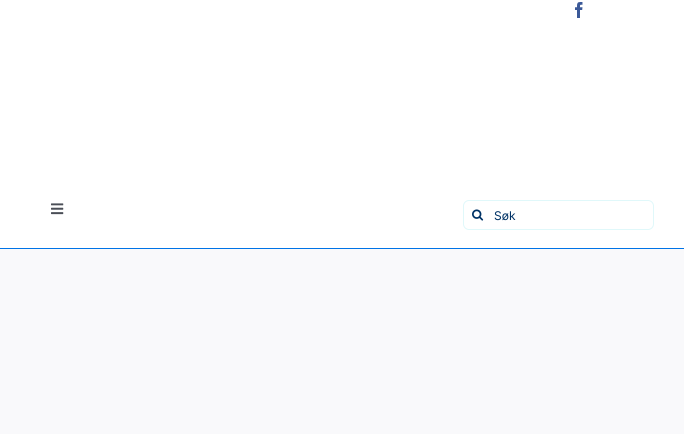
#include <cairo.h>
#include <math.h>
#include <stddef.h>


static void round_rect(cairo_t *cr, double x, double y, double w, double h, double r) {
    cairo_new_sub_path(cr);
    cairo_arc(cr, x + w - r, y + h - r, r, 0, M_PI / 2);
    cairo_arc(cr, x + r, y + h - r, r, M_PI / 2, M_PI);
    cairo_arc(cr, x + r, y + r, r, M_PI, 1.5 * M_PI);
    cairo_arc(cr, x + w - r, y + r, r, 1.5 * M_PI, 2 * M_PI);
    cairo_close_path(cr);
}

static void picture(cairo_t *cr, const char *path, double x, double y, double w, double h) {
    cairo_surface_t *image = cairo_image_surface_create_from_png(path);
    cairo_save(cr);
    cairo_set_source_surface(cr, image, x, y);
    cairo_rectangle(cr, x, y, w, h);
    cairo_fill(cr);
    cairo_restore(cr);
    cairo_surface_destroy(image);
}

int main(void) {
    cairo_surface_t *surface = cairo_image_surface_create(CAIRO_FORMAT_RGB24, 684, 434);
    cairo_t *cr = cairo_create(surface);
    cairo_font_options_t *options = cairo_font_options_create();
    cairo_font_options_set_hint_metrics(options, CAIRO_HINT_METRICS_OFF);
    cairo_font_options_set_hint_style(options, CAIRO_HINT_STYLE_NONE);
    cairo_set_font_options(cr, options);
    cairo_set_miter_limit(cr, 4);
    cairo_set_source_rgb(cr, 1, 1, 1);
    cairo_paint(cr);
    cairo_set_source_rgb(cr, 0, 0.451, 0.902);
    cairo_rectangle(cr, 0, 248, 684, 1);
    cairo_fill(cr);
    picture(cr, "img1.png", 575, 2, 8, 16);
    picture(cr, "img2.png", 51, 203, 13, 12);
    round_rect(cr, 463.5, 200.5, 190, 29, 5.5);
    cairo_set_source_rgb(cr, 0.878, 0.969, 0.98);
    cairo_set_line_width(cr, 1);
    cairo_stroke(cr);
    picture(cr, "img3.png", 472, 209, 12, 12);
    cairo_select_font_face(cr, "Inter", CAIRO_FONT_SLANT_NORMAL, CAIRO_FONT_WEIGHT_NORMAL);
    cairo_set_font_size(cr, 12);
    cairo_set_source_rgb(cr, 0, 0.2, 0.4);
    cairo_move_to(cr, 494, 220);
    cairo_show_text(cr, "Søk");
    cairo_set_source_rgb(cr, 0.976, 0.976, 0.984);
    cairo_rectangle(cr, 0, 249, 684, 185);
    cairo_fill(cr);
    cairo_surface_write_to_png(surface, "page.png");
    cairo_font_options_destroy(options);
    cairo_destroy(cr);
    cairo_surface_destroy(surface);
    return 0;
}
